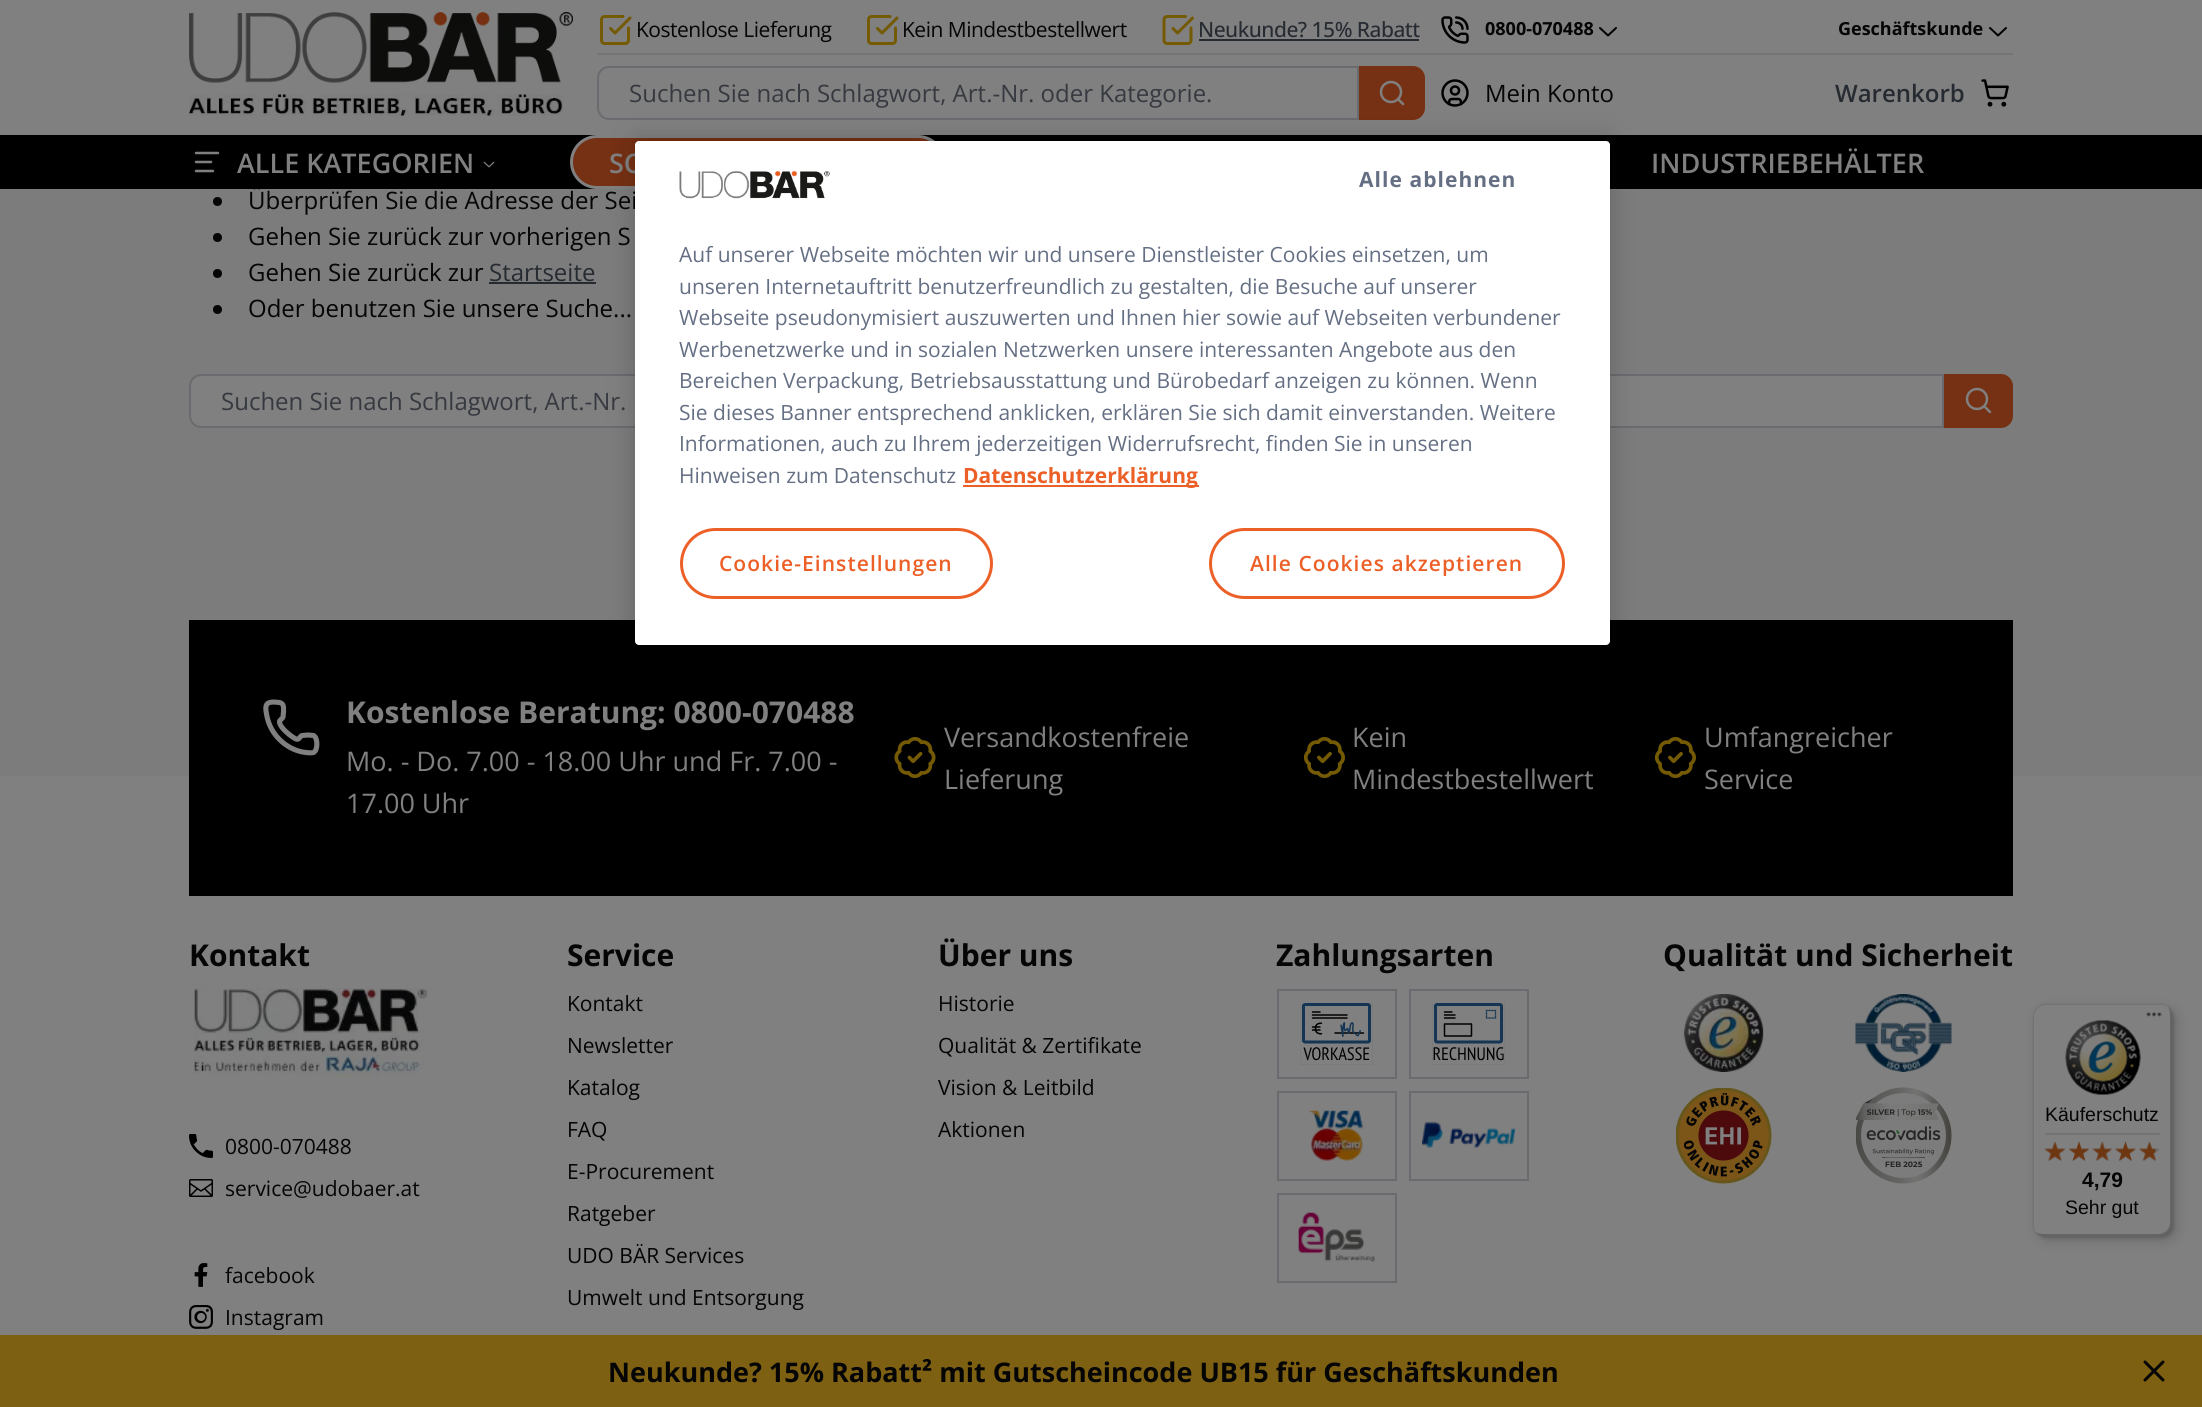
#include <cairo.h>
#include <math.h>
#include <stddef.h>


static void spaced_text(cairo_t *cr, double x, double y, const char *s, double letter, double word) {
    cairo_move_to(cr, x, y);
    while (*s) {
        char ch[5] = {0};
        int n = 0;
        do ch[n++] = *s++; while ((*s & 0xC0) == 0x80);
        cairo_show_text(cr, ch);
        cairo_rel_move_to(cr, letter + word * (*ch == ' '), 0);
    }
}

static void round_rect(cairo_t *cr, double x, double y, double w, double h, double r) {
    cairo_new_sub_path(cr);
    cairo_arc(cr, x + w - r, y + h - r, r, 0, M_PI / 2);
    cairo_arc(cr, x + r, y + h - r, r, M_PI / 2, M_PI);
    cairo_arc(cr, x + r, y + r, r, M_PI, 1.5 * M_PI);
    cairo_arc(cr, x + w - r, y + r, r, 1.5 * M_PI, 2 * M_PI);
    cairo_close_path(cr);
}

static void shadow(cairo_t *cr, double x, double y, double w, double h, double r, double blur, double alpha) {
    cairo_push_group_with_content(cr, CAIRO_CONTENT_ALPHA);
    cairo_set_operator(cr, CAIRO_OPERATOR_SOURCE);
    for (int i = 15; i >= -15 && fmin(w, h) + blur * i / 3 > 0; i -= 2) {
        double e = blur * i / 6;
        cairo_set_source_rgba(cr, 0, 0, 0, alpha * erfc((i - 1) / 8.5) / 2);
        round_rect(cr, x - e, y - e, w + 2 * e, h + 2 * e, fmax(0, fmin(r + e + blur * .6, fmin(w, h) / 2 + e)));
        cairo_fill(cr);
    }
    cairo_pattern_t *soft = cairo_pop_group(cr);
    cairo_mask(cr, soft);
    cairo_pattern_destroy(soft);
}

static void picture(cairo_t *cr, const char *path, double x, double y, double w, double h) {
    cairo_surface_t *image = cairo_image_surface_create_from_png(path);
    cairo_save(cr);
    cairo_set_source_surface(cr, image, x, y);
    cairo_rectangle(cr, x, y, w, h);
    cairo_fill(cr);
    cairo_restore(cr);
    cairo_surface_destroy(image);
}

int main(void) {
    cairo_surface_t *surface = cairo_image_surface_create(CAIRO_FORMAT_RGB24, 2202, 1407);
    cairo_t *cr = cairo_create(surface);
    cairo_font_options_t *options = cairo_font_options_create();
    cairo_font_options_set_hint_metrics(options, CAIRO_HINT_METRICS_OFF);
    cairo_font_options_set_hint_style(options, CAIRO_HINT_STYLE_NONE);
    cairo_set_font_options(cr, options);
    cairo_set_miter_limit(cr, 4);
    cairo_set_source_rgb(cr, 0.486, 0.486, 0.486);
    cairo_paint(cr);
    cairo_set_source_rgb(cr, 0.502, 0.502, 0.502);
    cairo_rectangle(cr, 0, 0, 2202, 135);
    cairo_fill(cr);
    picture(cr, "img1.png", 189, 12, 384, 71);
    picture(cr, "img2.png", 189, 94, 374, 22);
    cairo_set_source_rgb(cr, 0.451, 0.455, 0.463);
    cairo_rectangle(cr, 597, 53, 1416, 2);
    cairo_fill(cr);
    picture(cr, "img3.png", 600, 15, 32, 30);
    cairo_select_font_face(cr, "Open Sans", CAIRO_FONT_SLANT_NORMAL, CAIRO_FONT_WEIGHT_NORMAL);
    cairo_set_font_size(cr, 21);
    cairo_set_source_rgb(cr, 0.02, 0.02, 0.02);
    spaced_text(cr, 636, 37, "Kostenlose Lieferung", -0.5, 0);
    picture(cr, "img3.png", 867, 15, 32, 30);
    spaced_text(cr, 902, 37, "Kein Mindestbestellwert", -0.5, 0);
    picture(cr, "img4.png", 1162, 15, 32, 30);
    cairo_select_font_face(cr, "Open Sans Medium", CAIRO_FONT_SLANT_NORMAL, CAIRO_FONT_WEIGHT_NORMAL);
    cairo_set_source_rgb(cr, 0.149, 0.169, 0.196);
    spaced_text(cr, 1198, 37, "Neukunde? 15% Rabatt", -0.5, 0);
    cairo_rectangle(cr, 1199, 39, 220, 2);
    cairo_fill(cr);
    picture(cr, "img5.png", 1441, 16, 28, 28);
    cairo_select_font_face(cr, "Open Sans", CAIRO_FONT_SLANT_NORMAL, CAIRO_FONT_WEIGHT_BOLD);
    cairo_set_font_size(cr, 18);
    cairo_set_source_rgb(cr, 0.02, 0.02, 0.02);
    cairo_move_to(cr, 1485, 35);
    cairo_show_text(cr, "0800-070488");
    picture(cr, "img6.png", 1599, 27, 18, 10);
    cairo_move_to(cr, 1838, 35);
    cairo_show_text(cr, "Geschäftskunde");
    picture(cr, "img6.png", 1989, 27, 18, 10);
    cairo_new_path(cr);
    cairo_move_to(cr, 609, 67);
    cairo_line_to(cr, 1358, 67);
    cairo_line_to(cr, 1358, 119);
    cairo_line_to(cr, 609, 119);
    cairo_curve_to(cr, 603, 119, 598, 114, 598, 108);
    cairo_line_to(cr, 598, 78);
    cairo_curve_to(cr, 598, 72, 603, 67, 609, 67);
    cairo_close_path(cr);
    cairo_set_source_rgb(cr, 0.412, 0.42, 0.431);
    cairo_stroke(cr);
    cairo_select_font_face(cr, "Open Sans", CAIRO_FONT_SLANT_NORMAL, CAIRO_FONT_WEIGHT_NORMAL);
    cairo_set_font_size(cr, 24);
    cairo_set_source_rgb(cr, 0.212, 0.224, 0.251);
    cairo_move_to(cr, 629, 102);
    cairo_show_text(cr, "Suchen Sie nach Schlagwort, Art.-Nr. oder Kategorie.");
    cairo_set_source_rgb(cr, 0.463, 0.188, 0.078);
    cairo_new_path(cr);
    cairo_move_to(cr, 1359, 66);
    cairo_line_to(cr, 1413, 66);
    cairo_curve_to(cr, 1419.5, 66, 1425, 71.5, 1425, 78);
    cairo_line_to(cr, 1425, 108);
    cairo_curve_to(cr, 1425, 114.5, 1419.5, 120, 1413, 120);
    cairo_line_to(cr, 1359, 120);
    cairo_close_path(cr);
    cairo_fill(cr);
    cairo_new_path(cr);
    cairo_move_to(cr, 1403, 104);
    cairo_line_to(cr, 1398, 99);
    cairo_set_source_rgb(cr, 0.502, 0.502, 0.502);
    cairo_set_line_width(cr, 2.5);
    cairo_set_line_cap(cr, CAIRO_LINE_CAP_ROUND);
    cairo_set_line_join(cr, CAIRO_LINE_JOIN_ROUND);
    cairo_stroke(cr);
    cairo_arc(cr, 1391, 92, 10, 0, 2 * M_PI);
    cairo_set_line_cap(cr, CAIRO_LINE_CAP_BUTT);
    cairo_set_line_join(cr, CAIRO_LINE_JOIN_MITER);
    cairo_stroke(cr);
    cairo_arc(cr, 1455, 93, 12.5, 0, 2 * M_PI);
    cairo_set_source_rgb(cr, 0, 0, 0);
    cairo_stroke(cr);
    cairo_arc(cr, 1455, 90.5, 4, 0, 2 * M_PI);
    cairo_stroke(cr);
    cairo_new_path(cr);
    cairo_move_to(cr, 1449, 104);
    cairo_curve_to(cr, 1449, 98.5, 1450.5, 99, 1455, 99);
    cairo_curve_to(cr, 1459.5, 99, 1461, 98.5, 1461, 104);
    cairo_set_line_cap(cr, CAIRO_LINE_CAP_ROUND);
    cairo_set_line_join(cr, CAIRO_LINE_JOIN_ROUND);
    cairo_stroke(cr);
    cairo_set_source_rgb(cr, 0.02, 0.02, 0.02);
    cairo_move_to(cr, 1485, 102);
    cairo_show_text(cr, "Mein Konto");
    cairo_select_font_face(cr, "Open Sans SemiBold", CAIRO_FONT_SLANT_NORMAL, CAIRO_FONT_WEIGHT_NORMAL);
    cairo_set_source_rgb(cr, 0.149, 0.169, 0.196);
    cairo_move_to(cr, 1835, 102);
    cairo_show_text(cr, "Warenkorb");
    picture(cr, "img7.png", 1981, 79, 28, 28);
    cairo_select_font_face(cr, "Open Sans", CAIRO_FONT_SLANT_NORMAL, CAIRO_FONT_WEIGHT_NORMAL);
    cairo_set_source_rgb(cr, 0.02, 0.02, 0.02);
    cairo_move_to(cr, 248, 209);
    cairo_show_text(cr, "Überprüfen Sie die Adresse der Sei");
    cairo_set_source_rgb(cr, 0, 0, 0);
    cairo_rectangle(cr, 0, 135, 2202, 54);
    cairo_fill(cr);
    cairo_new_path(cr);
    cairo_move_to(cr, 218, 153);
    cairo_line_to(cr, 196, 153);
    cairo_move_to(cr, 211, 162);
    cairo_line_to(cr, 196, 162);
    cairo_move_to(cr, 213, 171);
    cairo_line_to(cr, 196, 171);
    cairo_set_source_rgb(cr, 0.502, 0.502, 0.502);
    cairo_stroke(cr);
    cairo_select_font_face(cr, "Open Sans SemiBold", CAIRO_FONT_SLANT_NORMAL, CAIRO_FONT_WEIGHT_NORMAL);
    cairo_set_font_size(cr, 27);
    cairo_move_to(cr, 237, 173);
    cairo_show_text(cr, "ALLE KATEGORIEN");
    picture(cr, "img8.png", 483, 161, 12, 7);
    cairo_set_source_rgb(cr, 0.463, 0.188, 0.078);
    round_rect(cr, 571.5, 136.5, 372, 51, 25.5);
    cairo_fill_preserve(cr);
    cairo_set_source_rgb(cr, 0.502, 0.502, 0.502);
    cairo_set_line_width(cr, 3);
    cairo_set_line_cap(cr, CAIRO_LINE_CAP_BUTT);
    cairo_set_line_join(cr, CAIRO_LINE_JOIN_MITER);
    cairo_stroke(cr);
    cairo_move_to(cr, 609, 173);
    cairo_show_text(cr, "SC");
    cairo_move_to(cr, 1651, 173);
    cairo_show_text(cr, "INDUSTRIEBEHÄLTER");
    cairo_set_source_rgb(cr, 0.02, 0.02, 0.02);
    cairo_new_path(cr);
    cairo_arc(cr, 217.5, 201.5, 4.5, 0, 2 * M_PI);
    cairo_fill(cr);
    cairo_arc(cr, 217.5, 237.5, 4.5, 0, 2 * M_PI);
    cairo_fill(cr);
    cairo_select_font_face(cr, "Open Sans", CAIRO_FONT_SLANT_NORMAL, CAIRO_FONT_WEIGHT_NORMAL);
    cairo_set_font_size(cr, 24);
    cairo_move_to(cr, 248, 245);
    cairo_show_text(cr, "Gehen Sie zurück zur vorherigen S");
    cairo_new_path(cr);
    cairo_arc(cr, 217.5, 273.5, 4.5, 0, 2 * M_PI);
    cairo_fill(cr);
    cairo_move_to(cr, 248, 281);
    cairo_show_text(cr, "Gehen Sie zurück zur");
    cairo_set_source_rgb(cr, 0.149, 0.169, 0.196);
    cairo_move_to(cr, 489, 281);
    cairo_show_text(cr, "Startseite");
    cairo_rectangle(cr, 489, 282, 107, 2);
    cairo_fill(cr);
    cairo_set_source_rgb(cr, 0.02, 0.02, 0.02);
    cairo_arc(cr, 217.5, 309.5, 4.5, 0, 2 * M_PI);
    cairo_fill(cr);
    cairo_move_to(cr, 248, 317);
    cairo_show_text(cr, "Oder benutzen Sie unsere Suche...");
    cairo_set_source_rgb(cr, 0.502, 0.502, 0.502);
    cairo_new_path(cr);
    cairo_move_to(cr, 201, 375);
    cairo_line_to(cr, 1943, 375);
    cairo_line_to(cr, 1943, 427);
    cairo_line_to(cr, 201, 427);
    cairo_curve_to(cr, 195, 427, 190, 422, 190, 416);
    cairo_line_to(cr, 190, 386);
    cairo_curve_to(cr, 190, 380, 195, 375, 201, 375);
    cairo_close_path(cr);
    cairo_fill_preserve(cr);
    cairo_set_source_rgb(cr, 0.412, 0.42, 0.431);
    cairo_set_line_width(cr, 2);
    cairo_stroke(cr);
    cairo_set_source_rgb(cr, 0.212, 0.224, 0.251);
    cairo_move_to(cr, 221, 410);
    cairo_show_text(cr, "Suchen Sie nach Schlagwort, Art.-Nr.");
    cairo_set_source_rgb(cr, 0.463, 0.188, 0.078);
    cairo_new_path(cr);
    cairo_move_to(cr, 1944, 374);
    cairo_line_to(cr, 2001, 374);
    cairo_curve_to(cr, 2007.5, 374, 2013, 379.5, 2013, 386);
    cairo_line_to(cr, 2013, 416);
    cairo_curve_to(cr, 2013, 422.5, 2007.5, 428, 2001, 428);
    cairo_line_to(cr, 1944, 428);
    cairo_close_path(cr);
    cairo_fill(cr);
    cairo_new_path(cr);
    cairo_move_to(cr, 1990, 412);
    cairo_line_to(cr, 1984.5, 406.5);
    cairo_set_source_rgb(cr, 0.502, 0.502, 0.502);
    cairo_set_line_width(cr, 2.5);
    cairo_set_line_cap(cr, CAIRO_LINE_CAP_ROUND);
    cairo_set_line_join(cr, CAIRO_LINE_JOIN_ROUND);
    cairo_stroke(cr);
    cairo_arc(cr, 1977, 399, 10, 0, 2 * M_PI);
    cairo_set_line_cap(cr, CAIRO_LINE_CAP_BUTT);
    cairo_set_line_join(cr, CAIRO_LINE_JOIN_MITER);
    cairo_stroke(cr);
    cairo_rectangle(cr, 0, 776, 2202, 559);
    cairo_fill(cr);
    cairo_set_source_rgb(cr, 0, 0, 0);
    cairo_rectangle(cr, 189, 620, 1824, 276);
    cairo_fill(cr);
    cairo_new_path(cr);
    cairo_move_to(cr, 296, 739);
    cairo_curve_to(cr, 299, 740.5, 300, 736, 302, 735.5);
    cairo_line_to(cr, 308.5, 735);
    cairo_line_to(cr, 313.5, 735.5);
    cairo_curve_to(cr, 318, 737.5, 318, 750.5, 313.5, 752.5);
    cairo_curve_to(cr, 310.5, 753.5, 303, 752, 302.5, 752);
    cairo_curve_to(cr, 285, 748.5, 270.5, 734, 267, 716.5);
    cairo_curve_to(cr, 265, 707, 264.5, 702, 274, 702);
    cairo_line_to(cr, 279.5, 702.5);
    cairo_curve_to(cr, 284.5, 703.5, 283.5, 708.5, 283.5, 712);
    cairo_line_to(cr, 283, 717);
    cairo_curve_to(cr, 282.5, 719, 279.5, 719.5, 279.5, 722);
    cairo_curve_to(cr, 280, 728, 291, 736.5, 296, 739);
    cairo_set_source_rgb(cr, 0.502, 0.502, 0.502);
    cairo_set_line_width(cr, 5.1);
    cairo_set_line_cap(cr, CAIRO_LINE_CAP_ROUND);
    cairo_set_line_join(cr, CAIRO_LINE_JOIN_ROUND);
    cairo_stroke(cr);
    cairo_select_font_face(cr, "Open Sans", CAIRO_FONT_SLANT_NORMAL, CAIRO_FONT_WEIGHT_BOLD);
    cairo_set_font_size(cr, 30);
    cairo_move_to(cr, 346, 723);
    cairo_show_text(cr, "Kostenlose Beratung: 0800-070488");
    cairo_select_font_face(cr, "Open Sans", CAIRO_FONT_SLANT_NORMAL, CAIRO_FONT_WEIGHT_NORMAL);
    cairo_set_font_size(cr, 27);
    cairo_move_to(cr, 346, 771);
    cairo_show_text(cr, "Mo. - Do. 7.00 - 18.00 Uhr und Fr. 7.00 -");
    cairo_move_to(cr, 346, 813);
    cairo_show_text(cr, "17.00 Uhr");
    picture(cr, "img9.png", 894, 736, 42, 43);
    cairo_move_to(cr, 944, 747);
    cairo_show_text(cr, "Versandkostenfreie");
    cairo_move_to(cr, 944, 789);
    cairo_show_text(cr, "Lieferung");
    picture(cr, "img10.png", 1303, 736, 42, 43);
    cairo_move_to(cr, 1352, 747);
    cairo_show_text(cr, "Kein");
    cairo_move_to(cr, 1352, 789);
    cairo_show_text(cr, "Mindestbestellwert");
    picture(cr, "img10.png", 1654, 736, 42, 43);
    cairo_move_to(cr, 1704, 747);
    cairo_show_text(cr, "Umfangreicher");
    cairo_move_to(cr, 1704, 789);
    cairo_show_text(cr, "Service");
    cairo_select_font_face(cr, "Open Sans", CAIRO_FONT_SLANT_NORMAL, CAIRO_FONT_WEIGHT_BOLD);
    cairo_set_font_size(cr, 30);
    cairo_set_source_rgb(cr, 0.02, 0.02, 0.02);
    cairo_move_to(cr, 189, 966);
    cairo_show_text(cr, "Kontakt");
    picture(cr, "img11.png", 194, 988, 235, 89);
    picture(cr, "img12.png", 189, 1134, 24, 24);
    cairo_select_font_face(cr, "Open Sans", CAIRO_FONT_SLANT_NORMAL, CAIRO_FONT_WEIGHT_NORMAL);
    cairo_set_font_size(cr, 21);
    cairo_move_to(cr, 225, 1154);
    cairo_show_text(cr, "0800-070488");
    picture(cr, "img13.png", 189, 1179, 24, 18);
    cairo_move_to(cr, 225, 1196);
    cairo_show_text(cr, "service@udobaer.at");
    picture(cr, "img14.png", 194, 1263, 14, 24);
    cairo_move_to(cr, 225, 1283);
    cairo_show_text(cr, "facebook");
    picture(cr, "img15.png", 189, 1305, 24, 24);
    cairo_move_to(cr, 225, 1325);
    cairo_show_text(cr, "Instagram");
    cairo_select_font_face(cr, "Open Sans", CAIRO_FONT_SLANT_NORMAL, CAIRO_FONT_WEIGHT_BOLD);
    cairo_set_font_size(cr, 30);
    cairo_move_to(cr, 567, 966);
    cairo_show_text(cr, "Service");
    cairo_select_font_face(cr, "Open Sans", CAIRO_FONT_SLANT_NORMAL, CAIRO_FONT_WEIGHT_NORMAL);
    cairo_set_font_size(cr, 21);
    cairo_move_to(cr, 567, 1011);
    cairo_show_text(cr, "Kontakt");
    cairo_move_to(cr, 567, 1053);
    cairo_show_text(cr, "Newsletter");
    cairo_move_to(cr, 567, 1095);
    cairo_show_text(cr, "Katalog");
    cairo_move_to(cr, 567, 1137);
    cairo_show_text(cr, "FAQ");
    cairo_move_to(cr, 567, 1179);
    cairo_show_text(cr, "E-Procurement");
    cairo_move_to(cr, 567, 1221);
    cairo_show_text(cr, "Ratgeber");
    cairo_move_to(cr, 567, 1263);
    cairo_show_text(cr, "UDO BÄR Services");
    cairo_move_to(cr, 567, 1305);
    cairo_show_text(cr, "Umwelt und Entsorgung");
    cairo_select_font_face(cr, "Open Sans", CAIRO_FONT_SLANT_NORMAL, CAIRO_FONT_WEIGHT_BOLD);
    cairo_set_font_size(cr, 30);
    cairo_move_to(cr, 938, 966);
    cairo_show_text(cr, "Über uns");
    cairo_select_font_face(cr, "Open Sans", CAIRO_FONT_SLANT_NORMAL, CAIRO_FONT_WEIGHT_NORMAL);
    cairo_set_font_size(cr, 21);
    cairo_move_to(cr, 938, 1011);
    cairo_show_text(cr, "Historie");
    cairo_move_to(cr, 938, 1053);
    cairo_show_text(cr, "Qualität & Zertifikate");
    cairo_move_to(cr, 938, 1095);
    cairo_show_text(cr, "Vision & Leitbild");
    cairo_move_to(cr, 938, 1137);
    cairo_show_text(cr, "Aktionen");
    cairo_select_font_face(cr, "Open Sans", CAIRO_FONT_SLANT_NORMAL, CAIRO_FONT_WEIGHT_BOLD);
    cairo_set_font_size(cr, 30);
    cairo_move_to(cr, 1276, 966);
    cairo_show_text(cr, "Zahlungsarten");
    cairo_rectangle(cr, 1278, 990, 118, 88);
    cairo_set_source_rgb(cr, 0.412, 0.42, 0.431);
    cairo_set_line_width(cr, 2);
    cairo_set_line_cap(cr, CAIRO_LINE_CAP_BUTT);
    cairo_set_line_join(cr, CAIRO_LINE_JOIN_MITER);
    cairo_stroke(cr);
    picture(cr, "img16.png", 1300, 1003, 73, 62);
    cairo_rectangle(cr, 1410, 990, 118, 88);
    cairo_stroke(cr);
    picture(cr, "img17.png", 1432, 1003, 73, 62);
    cairo_rectangle(cr, 1278, 1092, 118, 88);
    cairo_stroke(cr);
    picture(cr, "img18.png", 1308, 1110, 56, 51);
    cairo_rectangle(cr, 1410, 1092, 118, 88);
    cairo_stroke(cr);
    picture(cr, "img19.png", 1422, 1121, 93, 27);
    cairo_rectangle(cr, 1278, 1194, 118, 88);
    cairo_stroke(cr);
    picture(cr, "img20.png", 1298, 1212, 77, 50);
    cairo_set_source_rgb(cr, 0.02, 0.02, 0.02);
    cairo_move_to(cr, 1663, 966);
    cairo_show_text(cr, "Qualität und Sicherheit");
    picture(cr, "img21.png", 1683, 994, 81, 78);
    picture(cr, "img22.png", 1855, 994, 97, 78);
    picture(cr, "img23.png", 1676, 1088, 96, 96);
    picture(cr, "img24.png", 1856, 1087, 96, 97);
    cairo_select_font_face(cr, "Montserrat Thin", CAIRO_FONT_SLANT_NORMAL, CAIRO_FONT_WEIGHT_NORMAL);
    cairo_set_font_size(cr, 7.75);
    cairo_set_source_rgb(cr, 0.149, 0.149, 0.145);
    cairo_move_to(cr, 1885, 1167);
    cairo_show_text(cr, "FEB 2025");
    cairo_set_source_rgb(cr, 0.494, 0.376, 0.071);
    cairo_rectangle(cr, 0, 1335, 2202, 72);
    cairo_fill(cr);
    cairo_select_font_face(cr, "Open Sans", CAIRO_FONT_SLANT_NORMAL, CAIRO_FONT_WEIGHT_BOLD);
    cairo_set_font_size(cr, 27);
    cairo_set_source_rgb(cr, 0.02, 0.02, 0.02);
    cairo_move_to(cr, 608, 1382);
    cairo_show_text(cr, "Neukunde? 15% Rabatt² mit Gutscheincode UB15 für Geschäftskunden");
    cairo_new_path(cr);
    cairo_move_to(cr, 2163, 1362);
    cairo_line_to(cr, 2145, 1380);
    cairo_move_to(cr, 2145, 1362);
    cairo_line_to(cr, 2163, 1380);
    cairo_set_line_width(cr, 3);
    cairo_set_line_cap(cr, CAIRO_LINE_CAP_ROUND);
    cairo_set_line_join(cr, CAIRO_LINE_JOIN_ROUND);
    cairo_stroke(cr);
    cairo_set_source_rgb(cr, 0, 0, 0);
    shadow(cr, 635, 141, 975, 504, 4, 13.5, 0.2);
    cairo_set_source_rgb(cr, 1, 1, 1);
    round_rect(cr, 635, 141, 975, 504, 4);
    cairo_fill(cr);
    cairo_set_font_size(cr, 21);
    cairo_set_source_rgb(cr, 0.396, 0.435, 0.518);
    spaced_text(cr, 1359, 187, "Alle ablehnen", 1.05, 0);
    round_rect(cr, 681.5, 529.5, 310, 68, 34);
    cairo_set_source_rgb(cr, 0.922, 0.376, 0.157);
    cairo_set_line_cap(cr, CAIRO_LINE_CAP_BUTT);
    cairo_set_line_join(cr, CAIRO_LINE_JOIN_MITER);
    cairo_stroke(cr);
    cairo_select_font_face(cr, "Open Sans SemiBold", CAIRO_FONT_SLANT_NORMAL, CAIRO_FONT_WEIGHT_NORMAL);
    spaced_text(cr, 719, 571, "Cookie-Einstellungen", 1.05, 0);
    round_rect(cr, 1210.5, 529.5, 353, 68, 34);
    cairo_stroke(cr);
    spaced_text(cr, 1250, 571, "Alle Cookies akzeptieren", 1.05, 0);
    picture(cr, "img25.png", 679, 170, 151, 29);
    cairo_select_font_face(cr, "Open Sans", CAIRO_FONT_SLANT_NORMAL, CAIRO_FONT_WEIGHT_NORMAL);
    cairo_set_source_rgb(cr, 0.396, 0.435, 0.518);
    cairo_move_to(cr, 679, 262);
    cairo_show_text(cr, "Auf unserer Webseite möchten wir und unsere Dienstleister Cookies einsetzen, um");
    cairo_move_to(cr, 679, 294);
    cairo_show_text(cr, "unseren Internetauftritt benutzerfreundlich zu gestalten, die Besuche auf unserer");
    cairo_move_to(cr, 679, 325);
    cairo_show_text(cr, "Webseite pseudonymisiert auszuwerten und Ihnen hier sowie auf Webseiten verbundener");
    cairo_move_to(cr, 679, 357);
    cairo_show_text(cr, "Werbenetzwerke und in sozialen Netzwerken unsere interessanten Angebote aus den");
    cairo_move_to(cr, 679, 388);
    cairo_show_text(cr, "Bereichen Verpackung, Betriebsausstattung und Bürobedarf anzeigen zu können. Wenn");
    cairo_move_to(cr, 679, 420);
    cairo_show_text(cr, "Sie dieses Banner entsprechend anklicken, erklären Sie sich damit einverstanden. Weitere");
    cairo_move_to(cr, 679, 451);
    cairo_show_text(cr, "Informationen, auch zu Ihrem jederzeitigen Widerrufsrecht, finden Sie in unseren");
    cairo_move_to(cr, 679, 483);
    cairo_show_text(cr, "Hinweisen zum Datenschutz");
    cairo_set_source_rgb(cr, 0.922, 0.376, 0.157);
    cairo_rectangle(cr, 963, 485, 236, 2);
    cairo_fill(cr);
    cairo_select_font_face(cr, "Open Sans", CAIRO_FONT_SLANT_NORMAL, CAIRO_FONT_WEIGHT_BOLD);
    cairo_move_to(cr, 963, 483);
    cairo_show_text(cr, "Datenschutzerklärung");
    cairo_set_source_rgb(cr, 0, 0, 0);
    shadow(cr, 2037, 1008, 140, 233, 12, 6, 0.15);
    shadow(cr, 2034, 1005, 140, 233, 12, 1.5, 0.15);
    cairo_set_source_rgb(cr, 0.502, 0.502, 0.502);
    round_rect(cr, 2033, 1004, 139, 232, 12);
    cairo_fill(cr);
    cairo_set_source_rgb(cr, 0.451, 0.451, 0.451);
    cairo_new_path(cr);
    cairo_move_to(cr, 2046, 1005);
    cairo_line_to(cr, 2162, 1005);
    cairo_line_to(cr, 2167, 1006);
    cairo_curve_to(cr, 2165, 1005, 2162, 1004, 2160, 1004);
    cairo_line_to(cr, 2045, 1004);
    cairo_curve_to(cr, 2038, 1004, 2033, 1009, 2033, 1016);
    cairo_line_to(cr, 2033, 1224);
    cairo_curve_to(cr, 2033, 1226, 2034, 1229, 2035, 1231);
    cairo_line_to(cr, 2034, 1226);
    cairo_line_to(cr, 2034, 1017);
    cairo_curve_to(cr, 2034, 1010, 2039, 1005, 2046, 1005);
    cairo_close_path(cr);
    cairo_fill(cr);
    cairo_set_source_rgba(cr, 0, 0, 0, 0.2);
    cairo_new_path(cr);
    cairo_move_to(cr, 2036, 1232);
    cairo_curve_to(cr, 2038, 1234, 2041, 1236, 2045, 1236);
    cairo_line_to(cr, 2160, 1236);
    cairo_curve_to(cr, 2167, 1236, 2172, 1231, 2172, 1224);
    cairo_line_to(cr, 2172, 1016);
    cairo_curve_to(cr, 2172, 1012, 2170, 1009, 2168, 1007);
    cairo_curve_to(cr, 2169, 1009, 2170, 1011, 2170, 1014);
    cairo_line_to(cr, 2170, 1222);
    cairo_curve_to(cr, 2170, 1229, 2165, 1234, 2158, 1234);
    cairo_line_to(cr, 2043, 1234);
    cairo_curve_to(cr, 2040, 1234, 2038, 1233, 2036, 1232);
    cairo_close_path(cr);
    cairo_fill(cr);
    cairo_set_source_rgba(cr, 0.098, 0.098, 0.098, 0.2);
    cairo_new_path(cr);
    cairo_move_to(cr, 2037, 1233);
    cairo_curve_to(cr, 2039, 1235, 2042, 1236, 2045, 1236);
    cairo_line_to(cr, 2160, 1236);
    cairo_curve_to(cr, 2167, 1236, 2172, 1231, 2172, 1224);
    cairo_line_to(cr, 2172, 1016);
    cairo_curve_to(cr, 2172, 1013, 2171, 1010, 2169, 1008);
    cairo_curve_to(cr, 2170, 1010, 2171, 1012, 2171, 1015);
    cairo_line_to(cr, 2171, 1223);
    cairo_curve_to(cr, 2171, 1230, 2166, 1235, 2159, 1235);
    cairo_line_to(cr, 2044, 1235);
    cairo_curve_to(cr, 2041, 1235, 2039, 1234, 2037, 1233);
    cairo_close_path(cr);
    cairo_fill(cr);
    cairo_set_source_rgba(cr, 0.502, 0.502, 0.502, 0.3);
    cairo_new_path(cr);
    cairo_move_to(cr, 2037, 1233);
    cairo_curve_to(cr, 2039, 1235, 2042, 1236, 2045, 1236);
    cairo_line_to(cr, 2160, 1236);
    cairo_curve_to(cr, 2167, 1236, 2172, 1231, 2172, 1224);
    cairo_line_to(cr, 2172, 1016);
    cairo_curve_to(cr, 2172, 1013, 2171, 1010, 2169, 1008);
    cairo_curve_to(cr, 2170, 1010, 2171, 1012, 2171, 1015);
    cairo_line_to(cr, 2171, 1223);
    cairo_curve_to(cr, 2171, 1230, 2166, 1235, 2159, 1235);
    cairo_line_to(cr, 2044, 1235);
    cairo_curve_to(cr, 2041, 1235, 2039, 1234, 2037, 1233);
    cairo_close_path(cr);
    cairo_fill(cr);
    picture(cr, "img26.png", 2146, 1012, 16, 5);
    picture(cr, "img27.png", 2065, 1020, 76, 75);
    cairo_select_font_face(cr, "Liberation Sans", CAIRO_FONT_SLANT_NORMAL, CAIRO_FONT_WEIGHT_NORMAL);
    cairo_set_font_size(cr, 19.5);
    cairo_set_source_rgb(cr, 0.02, 0.02, 0.02);
    cairo_move_to(cr, 2045, 1121);
    cairo_show_text(cr, "Käuferschutz");
    cairo_set_source_rgb(cr, 0.451, 0.451, 0.451);
    cairo_rectangle(cr, 2045, 1133, 115, 2);
    cairo_fill(cr);
    picture(cr, "img33.png", 2045, 1142, 20, 19);
    picture(cr, "img28.png", 2044, 1141, 22, 20);
    picture(cr, "img34.png", 2069, 1141, 20, 20);
    picture(cr, "img29.png", 2069, 1141, 20, 20);
    picture(cr, "img35.png", 2092, 1141, 20, 20);
    picture(cr, "img30.png", 2092, 1141, 20, 20);
    picture(cr, "img36.png", 2115, 1141, 21, 20);
    picture(cr, "img31.png", 2115, 1141, 21, 20);
    picture(cr, "img37.png", 2139, 1142, 21, 19);
    picture(cr, "img32.png", 2139, 1141, 17, 20);
    cairo_select_font_face(cr, "Liberation Sans", CAIRO_FONT_SLANT_NORMAL, CAIRO_FONT_WEIGHT_BOLD);
    cairo_set_font_size(cr, 21);
    cairo_set_source_rgb(cr, 0.02, 0.02, 0.02);
    cairo_move_to(cr, 2082, 1187);
    cairo_show_text(cr, "4,79");
    cairo_select_font_face(cr, "Liberation Sans", CAIRO_FONT_SLANT_NORMAL, CAIRO_FONT_WEIGHT_NORMAL);
    cairo_set_font_size(cr, 19.5);
    cairo_move_to(cr, 2065, 1214);
    cairo_show_text(cr, "Sehr gut");
    cairo_surface_write_to_png(surface, "page.png");
    cairo_font_options_destroy(options);
    cairo_destroy(cr);
    cairo_surface_destroy(surface);
    return 0;
}
